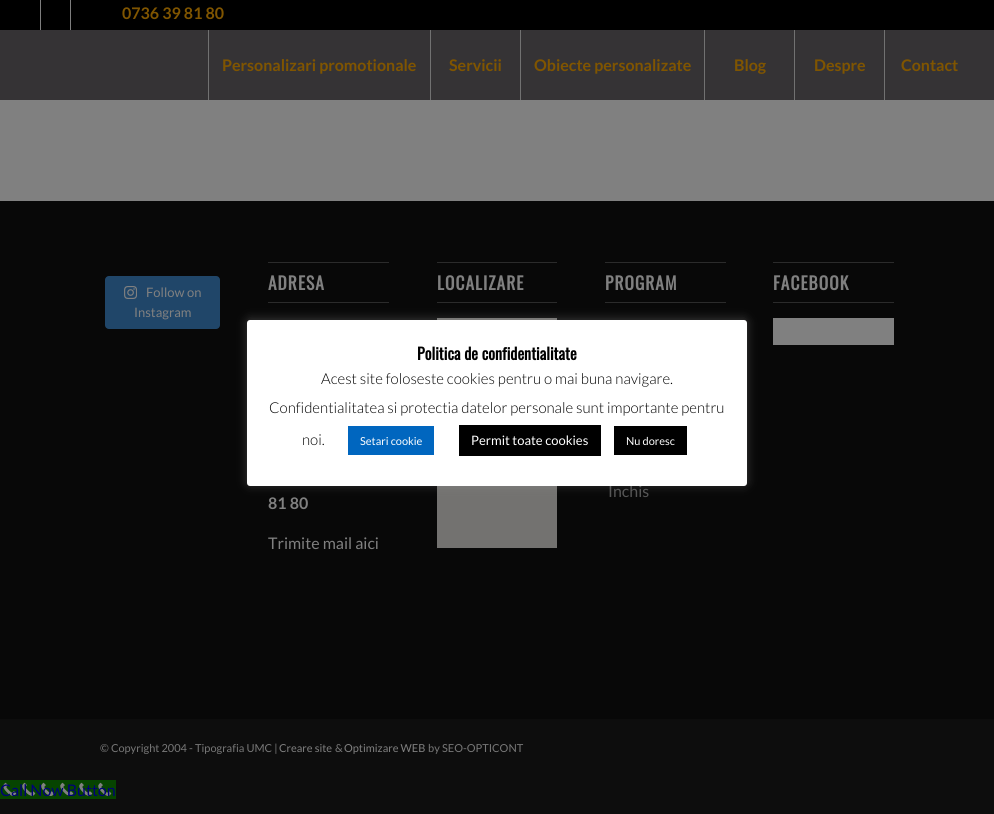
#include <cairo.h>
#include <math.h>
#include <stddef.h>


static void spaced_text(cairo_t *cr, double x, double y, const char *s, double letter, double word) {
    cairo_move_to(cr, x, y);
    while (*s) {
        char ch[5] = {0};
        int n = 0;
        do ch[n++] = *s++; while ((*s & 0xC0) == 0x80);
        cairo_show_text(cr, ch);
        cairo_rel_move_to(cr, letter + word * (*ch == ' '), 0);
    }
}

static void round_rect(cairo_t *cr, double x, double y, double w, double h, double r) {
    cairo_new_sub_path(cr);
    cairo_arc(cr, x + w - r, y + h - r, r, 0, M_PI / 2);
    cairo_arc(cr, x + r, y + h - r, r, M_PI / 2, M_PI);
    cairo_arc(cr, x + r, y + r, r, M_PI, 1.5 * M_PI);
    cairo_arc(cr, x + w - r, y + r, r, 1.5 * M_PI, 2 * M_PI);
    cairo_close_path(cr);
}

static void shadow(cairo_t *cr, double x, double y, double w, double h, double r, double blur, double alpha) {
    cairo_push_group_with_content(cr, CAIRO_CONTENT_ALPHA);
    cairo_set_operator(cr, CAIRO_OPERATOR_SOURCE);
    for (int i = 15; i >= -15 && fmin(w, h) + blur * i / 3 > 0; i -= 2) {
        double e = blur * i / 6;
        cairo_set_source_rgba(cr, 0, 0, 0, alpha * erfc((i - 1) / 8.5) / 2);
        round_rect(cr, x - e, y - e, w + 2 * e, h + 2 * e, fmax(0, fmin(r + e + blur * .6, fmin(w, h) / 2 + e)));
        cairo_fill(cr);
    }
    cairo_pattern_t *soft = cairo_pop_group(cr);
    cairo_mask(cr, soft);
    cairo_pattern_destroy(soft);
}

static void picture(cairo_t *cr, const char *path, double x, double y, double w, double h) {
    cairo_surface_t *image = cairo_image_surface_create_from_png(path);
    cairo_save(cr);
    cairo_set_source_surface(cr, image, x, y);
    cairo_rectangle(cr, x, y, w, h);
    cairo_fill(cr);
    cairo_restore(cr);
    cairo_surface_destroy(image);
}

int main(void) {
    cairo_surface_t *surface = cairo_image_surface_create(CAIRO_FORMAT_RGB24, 994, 814);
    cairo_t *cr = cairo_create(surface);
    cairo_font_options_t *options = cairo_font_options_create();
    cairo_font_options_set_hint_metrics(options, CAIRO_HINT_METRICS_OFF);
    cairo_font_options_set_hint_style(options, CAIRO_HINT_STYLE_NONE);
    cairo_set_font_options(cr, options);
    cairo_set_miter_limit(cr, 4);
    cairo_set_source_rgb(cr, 0.051, 0.051, 0.051);
    cairo_paint(cr);
    cairo_set_source_rgb(cr, 0, 0, 0);
    cairo_rectangle(cr, 0, 0, 994, 30);
    cairo_fill(cr);
    cairo_set_source_rgb(cr, 0.494, 0.494, 0.494);
    cairo_rectangle(cr, 40, 0, 1, 30);
    cairo_fill(cr);
    cairo_rectangle(cr, 70, 0, 1, 30);
    cairo_fill(cr);
    cairo_select_font_face(cr, "Lato", CAIRO_FONT_SLANT_NORMAL, CAIRO_FONT_WEIGHT_BOLD);
    cairo_set_font_size(cr, 16);
    cairo_set_source_rgb(cr, 0.502, 0.333, 0);
    cairo_move_to(cr, 122, 19);
    cairo_show_text(cr, "0736 39 81 80");
    cairo_set_source_rgb(cr, 0.208, 0.2, 0.208);
    cairo_rectangle(cr, 0, 30, 994, 70);
    cairo_fill(cr);
    cairo_set_source_rgb(cr, 0.443, 0.443, 0.443);
    cairo_rectangle(cr, 208, 30, 1, 70);
    cairo_fill(cr);
    cairo_set_source_rgb(cr, 0.502, 0.333, 0);
    cairo_move_to(cr, 222, 71);
    cairo_show_text(cr, "Personalizari promotionale");
    cairo_set_source_rgb(cr, 0.443, 0.443, 0.443);
    cairo_rectangle(cr, 430, 30, 1, 70);
    cairo_fill(cr);
    cairo_set_source_rgb(cr, 0.502, 0.333, 0);
    cairo_move_to(cr, 449, 71);
    cairo_show_text(cr, "Servicii");
    cairo_set_source_rgb(cr, 0.443, 0.443, 0.443);
    cairo_rectangle(cr, 520, 30, 1, 70);
    cairo_fill(cr);
    cairo_set_source_rgb(cr, 0.502, 0.333, 0);
    cairo_move_to(cr, 534, 71);
    cairo_show_text(cr, "Obiecte personalizate");
    cairo_set_source_rgb(cr, 0.443, 0.443, 0.443);
    cairo_rectangle(cr, 704, 30, 1, 70);
    cairo_fill(cr);
    cairo_set_source_rgb(cr, 0.502, 0.333, 0);
    cairo_move_to(cr, 734, 71);
    cairo_show_text(cr, "Blog");
    cairo_set_source_rgb(cr, 0.443, 0.443, 0.443);
    cairo_rectangle(cr, 794, 30, 1, 70);
    cairo_fill(cr);
    cairo_set_source_rgb(cr, 0.502, 0.333, 0);
    cairo_move_to(cr, 814, 71);
    cairo_show_text(cr, "Despre");
    cairo_set_source_rgb(cr, 0.443, 0.443, 0.443);
    cairo_rectangle(cr, 884, 30, 1, 70);
    cairo_fill(cr);
    cairo_set_source_rgb(cr, 0.502, 0.333, 0);
    cairo_move_to(cr, 901, 71);
    cairo_show_text(cr, "Contact");
    cairo_set_source_rgb(cr, 0.502, 0.502, 0.502);
    cairo_rectangle(cr, 0, 100, 994, 101);
    cairo_fill(cr);
    cairo_set_source_rgb(cr, 0.035, 0.035, 0.035);
    cairo_rectangle(cr, 0, 201, 994, 518);
    cairo_fill(cr);
    cairo_set_source_rgb(cr, 0.169, 0.169, 0.169);
    cairo_rectangle(cr, 268, 262, 121, 1);
    cairo_fill(cr);
    cairo_rectangle(cr, 268, 302, 121, 1);
    cairo_fill(cr);
    cairo_select_font_face(cr, "Oswald", CAIRO_FONT_SLANT_NORMAL, CAIRO_FONT_WEIGHT_BOLD);
    cairo_set_font_size(cr, 17.5);
    cairo_set_source_rgb(cr, 0.502, 0.502, 0.502);
    spaced_text(cr, 268, 290, "ADRESA", 1, 0);
    cairo_select_font_face(cr, "Lato", CAIRO_FONT_SLANT_NORMAL, CAIRO_FONT_WEIGHT_BOLD);
    cairo_set_font_size(cr, 16);
    cairo_move_to(cr, 268, 509);
    cairo_show_text(cr, "81 80");
    cairo_select_font_face(cr, "Lato", CAIRO_FONT_SLANT_NORMAL, CAIRO_FONT_WEIGHT_NORMAL);
    cairo_move_to(cr, 268, 549);
    cairo_show_text(cr, "Trimite mail aici");
    cairo_set_source_rgb(cr, 0.169, 0.169, 0.169);
    cairo_rectangle(cr, 437, 262, 120, 1);
    cairo_fill(cr);
    cairo_rectangle(cr, 437, 302, 120, 1);
    cairo_fill(cr);
    cairo_select_font_face(cr, "Oswald", CAIRO_FONT_SLANT_NORMAL, CAIRO_FONT_WEIGHT_BOLD);
    cairo_set_font_size(cr, 17.5);
    cairo_set_source_rgb(cr, 0.502, 0.502, 0.502);
    spaced_text(cr, 437, 290, "LOCALIZARE", 1, 0);
    cairo_set_source_rgb(cr, 0.451, 0.447, 0.439);
    cairo_rectangle(cr, 437, 318, 120, 230);
    cairo_fill(cr);
    cairo_set_source_rgb(cr, 0.169, 0.169, 0.169);
    cairo_rectangle(cr, 605, 262, 121, 1);
    cairo_fill(cr);
    cairo_rectangle(cr, 605, 302, 121, 1);
    cairo_fill(cr);
    cairo_set_source_rgb(cr, 0.502, 0.502, 0.502);
    spaced_text(cr, 605, 290, "PROGRAM", 1, 0);
    cairo_select_font_face(cr, "Lato", CAIRO_FONT_SLANT_NORMAL, CAIRO_FONT_WEIGHT_NORMAL);
    cairo_set_font_size(cr, 16);
    cairo_set_source_rgb(cr, 0.333, 0.333, 0.333);
    cairo_move_to(cr, 608, 497);
    cairo_show_text(cr, "Inchis");
    cairo_set_source_rgb(cr, 0.169, 0.169, 0.169);
    cairo_rectangle(cr, 773, 262, 121, 1);
    cairo_fill(cr);
    cairo_rectangle(cr, 773, 302, 121, 1);
    cairo_fill(cr);
    cairo_select_font_face(cr, "Oswald", CAIRO_FONT_SLANT_NORMAL, CAIRO_FONT_WEIGHT_BOLD);
    cairo_set_font_size(cr, 17.5);
    cairo_set_source_rgb(cr, 0.502, 0.502, 0.502);
    spaced_text(cr, 773, 290, "FACEBOOK", 1, 0);
    cairo_rectangle(cr, 773, 318, 121, 27);
    cairo_fill(cr);
    cairo_set_source_rgb(cr, 0.125, 0.275, 0.412);
    round_rect(cr, 105, 276, 115, 53, 4);
    cairo_fill(cr);
    picture(cr, "img1.png", 124, 286, 13, 13);
    cairo_select_font_face(cr, "Lato", CAIRO_FONT_SLANT_NORMAL, CAIRO_FONT_WEIGHT_NORMAL);
    cairo_set_font_size(cr, 13);
    cairo_set_source_rgb(cr, 0.502, 0.502, 0.502);
    cairo_move_to(cr, 146, 297);
    cairo_show_text(cr, "Follow on");
    cairo_move_to(cr, 134, 317);
    cairo_show_text(cr, "Instagram");
    cairo_set_font_size(cr, 11);
    cairo_set_source_rgb(cr, 0.467, 0.467, 0.467);
    cairo_move_to(cr, 100, 752);
    cairo_show_text(cr, "© Copyright 2004 - Tipografia UMC |");
    cairo_set_source_rgb(cr, 0.502, 0.502, 0.502);
    cairo_move_to(cr, 279, 752);
    cairo_show_text(cr, "Creare site");
    cairo_set_source_rgb(cr, 0.467, 0.467, 0.467);
    cairo_move_to(cr, 335, 752);
    cairo_show_text(cr, "&");
    cairo_set_source_rgb(cr, 0.502, 0.502, 0.502);
    cairo_move_to(cr, 344, 752);
    cairo_show_text(cr, "Optimizare WEB");
    cairo_set_source_rgb(cr, 0.467, 0.467, 0.467);
    cairo_move_to(cr, 428, 752);
    cairo_show_text(cr, "by SEO-OPTICONT");
    cairo_set_source_rgb(cr, 0.675, 0.671, 0.671);
    shadow(cr, 247, 319, 500, 166, 3, 5, 0.3);
    cairo_set_source_rgb(cr, 1, 1, 1);
    round_rect(cr, 247, 320, 500, 166, 3);
    cairo_fill(cr);
    cairo_select_font_face(cr, "Oswald", CAIRO_FONT_SLANT_NORMAL, CAIRO_FONT_WEIGHT_BOLD);
    cairo_set_font_size(cr, 16);
    cairo_set_source_rgb(cr, 0, 0, 0);
    cairo_move_to(cr, 417, 360);
    cairo_show_text(cr, "Politica de confidentialitate");
    cairo_select_font_face(cr, "Lato Light", CAIRO_FONT_SLANT_NORMAL, CAIRO_FONT_WEIGHT_NORMAL);
    cairo_set_font_size(cr, 15);
    cairo_move_to(cr, 321, 384);
    cairo_show_text(cr, "Acest site foloseste cookies pentru o mai buna navigare.");
    cairo_move_to(cr, 269, 413);
    cairo_show_text(cr, "Confidentialitatea si protectia datelor personale sunt importante pentru");
    cairo_move_to(cr, 302, 445);
    cairo_show_text(cr, "noi.");
    cairo_set_source_rgb(cr, 0, 0.4, 0.749);
    cairo_rectangle(cr, 348, 426, 86, 29);
    cairo_fill(cr);
    cairo_select_font_face(cr, "Lato", CAIRO_FONT_SLANT_NORMAL, CAIRO_FONT_WEIGHT_NORMAL);
    cairo_set_font_size(cr, 11);
    cairo_set_source_rgb(cr, 1, 1, 1);
    cairo_move_to(cr, 360, 445);
    cairo_show_text(cr, "Setari cookie");
    cairo_set_source_rgb(cr, 0, 0, 0);
    cairo_rectangle(cr, 459, 425, 142, 31);
    cairo_fill(cr);
    cairo_set_font_size(cr, 13);
    cairo_set_source_rgb(cr, 1, 1, 1);
    cairo_move_to(cr, 471, 445);
    cairo_show_text(cr, "Permit toate cookies");
    cairo_set_source_rgb(cr, 0, 0, 0);
    cairo_rectangle(cr, 614, 426, 73, 29);
    cairo_fill(cr);
    cairo_set_font_size(cr, 11);
    cairo_set_source_rgb(cr, 1, 1, 1);
    cairo_move_to(cr, 626, 445);
    cairo_show_text(cr, "Nu doresc");
    cairo_set_source_rgb(cr, 0.027, 0.267, 0);
    cairo_rectangle(cr, 0, 780, 116, 19);
    cairo_fill(cr);
    picture(cr, "img2.png", 3, 782, 109, 14);
    cairo_set_font_size(cr, 16);
    cairo_set_source_rgb(cr, 0, 0, 0.467);
    cairo_move_to(cr, 0, 796);
    cairo_show_text(cr, "Call Now Button");
    cairo_surface_write_to_png(surface, "page.png");
    cairo_font_options_destroy(options);
    cairo_destroy(cr);
    cairo_surface_destroy(surface);
    return 0;
}
